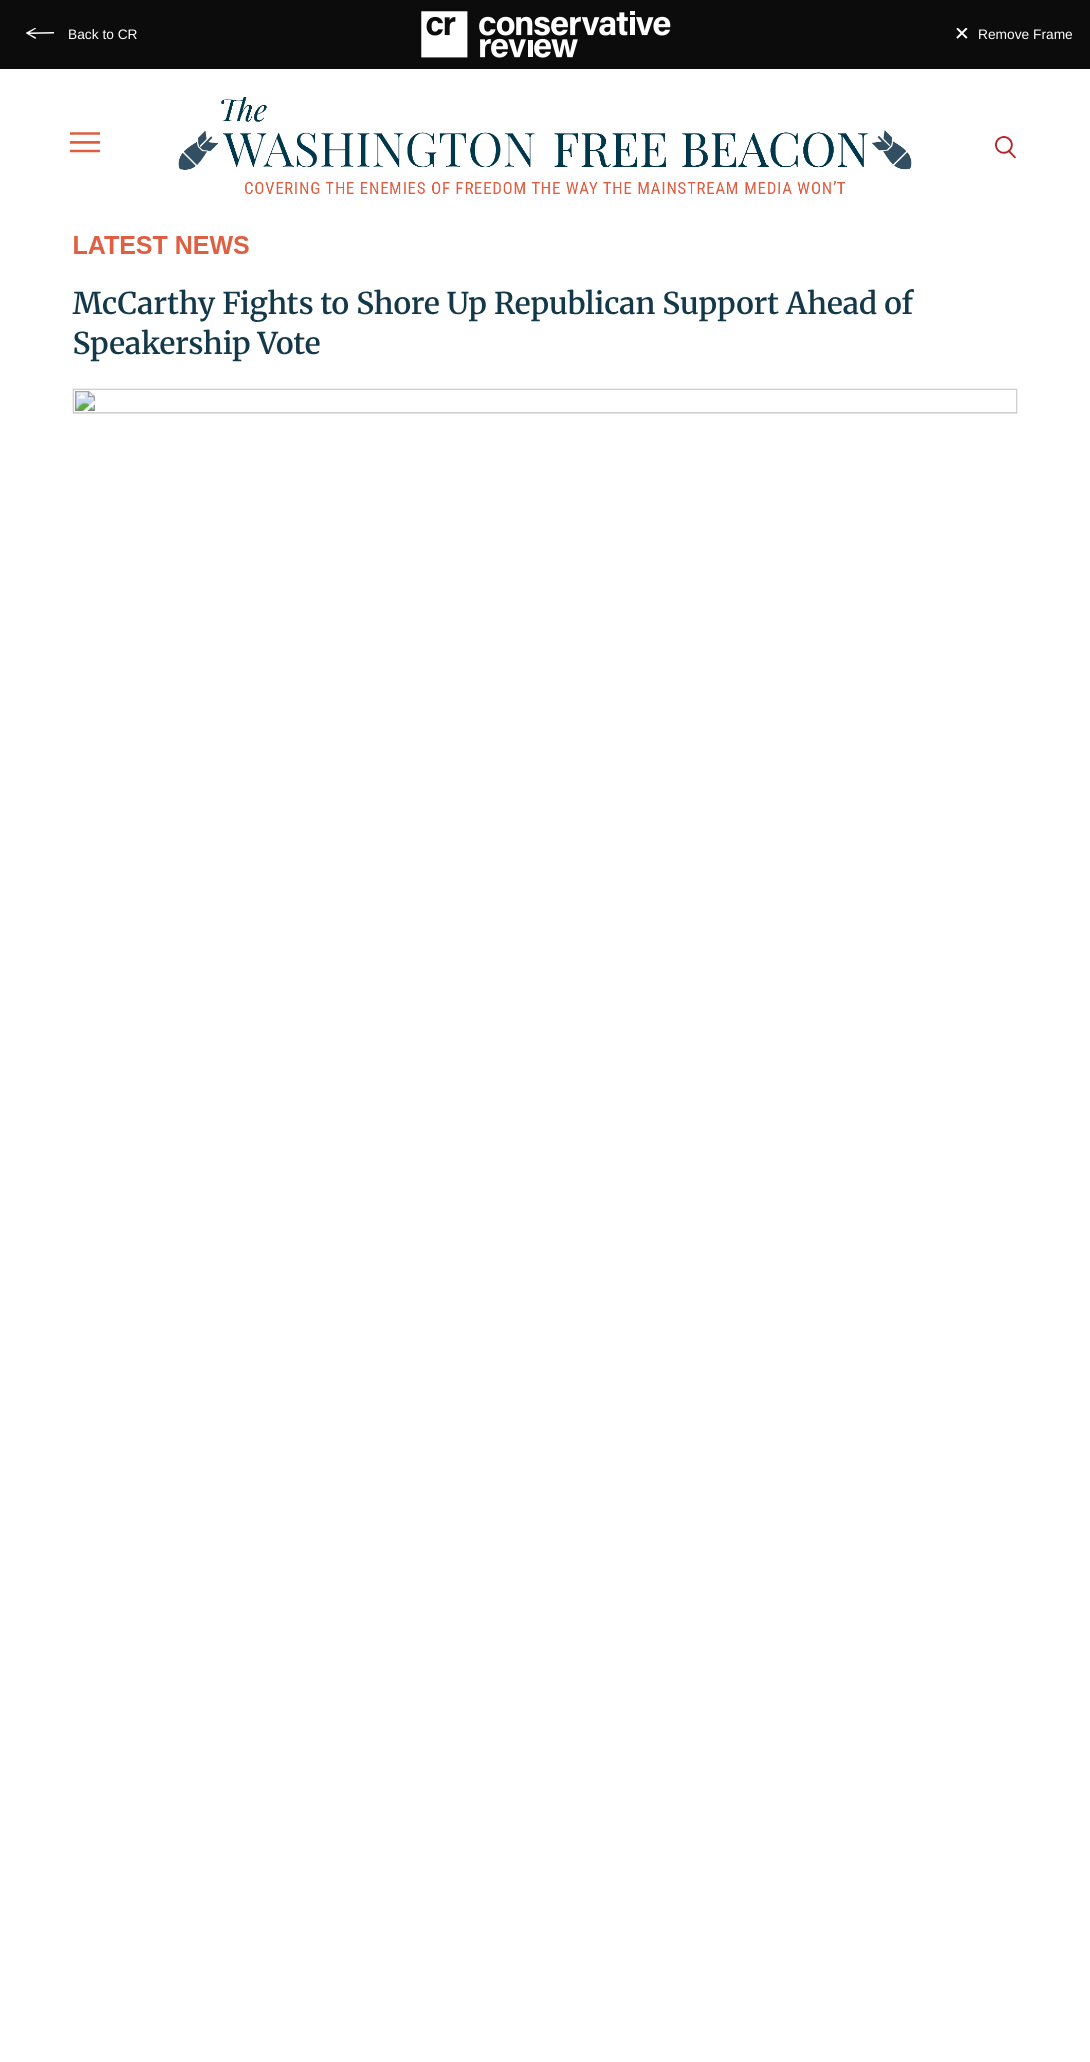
#include <cairo.h>
#include <math.h>
#include <stddef.h>


static void picture(cairo_t *cr, const char *path, double x, double y, double w, double h) {
    cairo_surface_t *image = cairo_image_surface_create_from_png(path);
    cairo_save(cr);
    cairo_set_source_surface(cr, image, x, y);
    cairo_rectangle(cr, x, y, w, h);
    cairo_fill(cr);
    cairo_restore(cr);
    cairo_surface_destroy(image);
}

int main(void) {
    cairo_surface_t *surface = cairo_image_surface_create(CAIRO_FORMAT_RGB24, 1090, 2062);
    cairo_t *cr = cairo_create(surface);
    cairo_font_options_t *options = cairo_font_options_create();
    cairo_font_options_set_hint_metrics(options, CAIRO_HINT_METRICS_OFF);
    cairo_font_options_set_hint_style(options, CAIRO_HINT_STYLE_NONE);
    cairo_set_font_options(cr, options);
    cairo_set_miter_limit(cr, 4);
    cairo_set_source_rgb(cr, 0.051, 0.047, 0.047);
    cairo_paint(cr);
    cairo_set_source_rgb(cr, 1, 1, 1);
    cairo_rectangle(cr, 0, 69, 1090, 3);
    cairo_fill(cr);
    cairo_save(cr);
    cairo_rectangle(cr, 26, 28, 29, 11);
    cairo_clip(cr);
    cairo_new_path(cr);
    cairo_move_to(cr, 35.5, 39);
    cairo_line_to(cr, 25.5, 33);
    cairo_line_to(cr, 35.5, 27.5);
    cairo_line_to(cr, 36, 28.5);
    cairo_line_to(cr, 29.5, 32.5);
    cairo_line_to(cr, 54, 32);
    cairo_line_to(cr, 54, 33.5);
    cairo_line_to(cr, 29.5, 34);
    cairo_line_to(cr, 36, 37.5);
    cairo_close_path(cr);
    cairo_fill(cr);
    cairo_restore(cr);
    cairo_select_font_face(cr, "Liberation Sans", CAIRO_FONT_SLANT_NORMAL, CAIRO_FONT_WEIGHT_NORMAL);
    cairo_set_font_size(cr, 13.75);
    cairo_move_to(cr, 68, 39);
    cairo_show_text(cr, "Back to CR");
    picture(cr, "img1.png", 421, 11, 250, 47);
    picture(cr, "img2.png", 956, 28, 12, 11);
    cairo_move_to(cr, 978, 39);
    cairo_show_text(cr, "Remove Frame");
    picture(cr, "img3.png", 0, 72, 1090, 1990);
    cairo_surface_write_to_png(surface, "page.png");
    cairo_font_options_destroy(options);
    cairo_destroy(cr);
    cairo_surface_destroy(surface);
    return 0;
}
